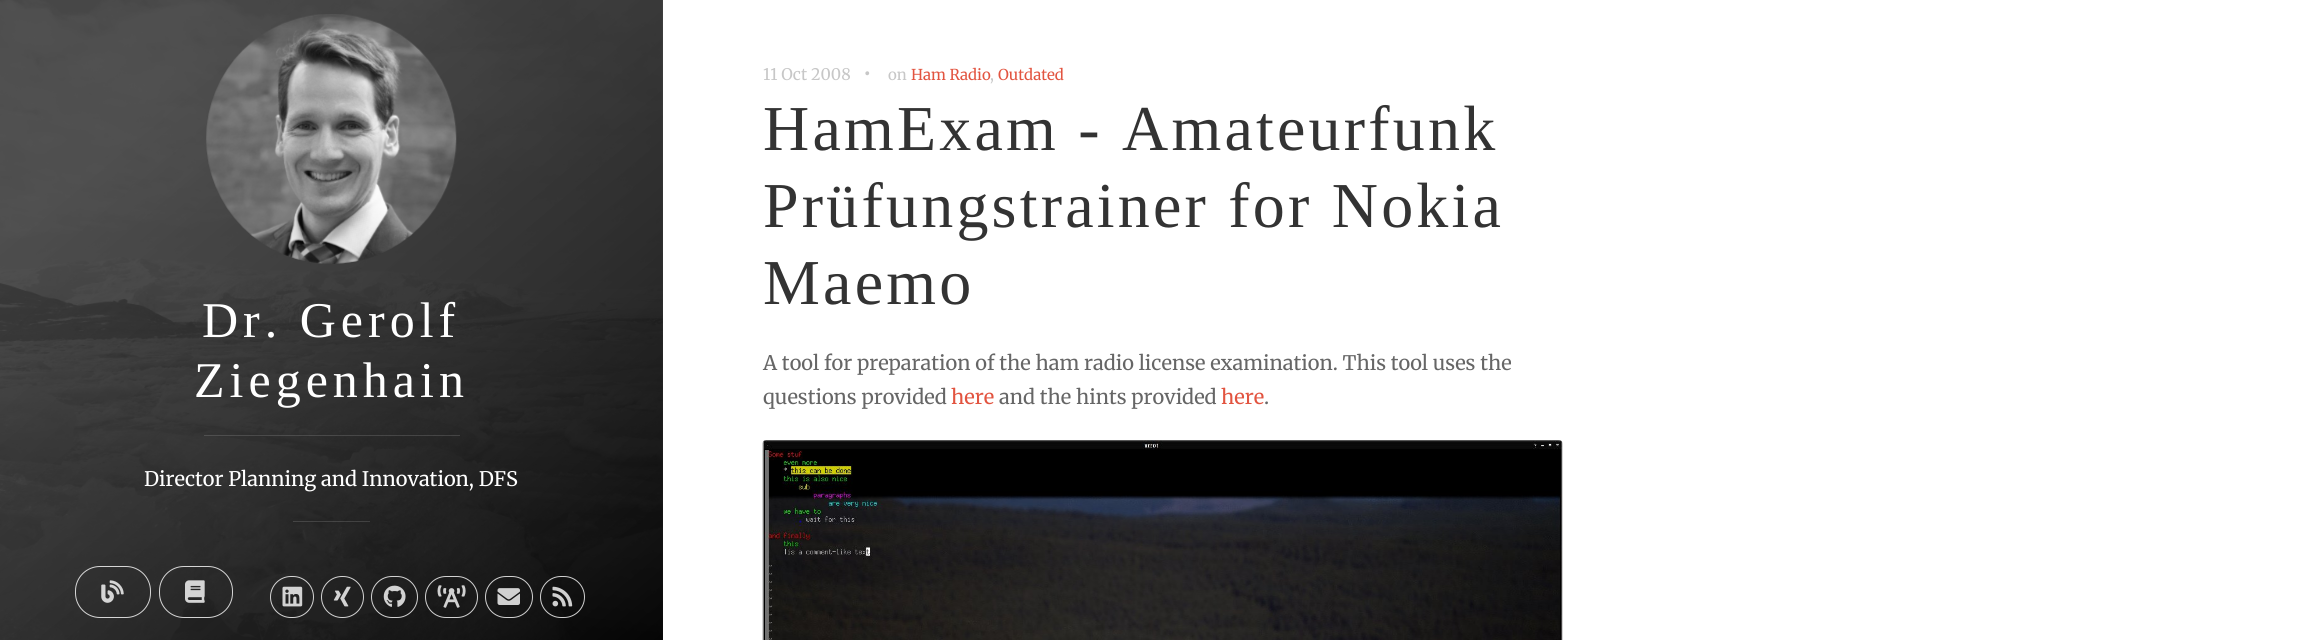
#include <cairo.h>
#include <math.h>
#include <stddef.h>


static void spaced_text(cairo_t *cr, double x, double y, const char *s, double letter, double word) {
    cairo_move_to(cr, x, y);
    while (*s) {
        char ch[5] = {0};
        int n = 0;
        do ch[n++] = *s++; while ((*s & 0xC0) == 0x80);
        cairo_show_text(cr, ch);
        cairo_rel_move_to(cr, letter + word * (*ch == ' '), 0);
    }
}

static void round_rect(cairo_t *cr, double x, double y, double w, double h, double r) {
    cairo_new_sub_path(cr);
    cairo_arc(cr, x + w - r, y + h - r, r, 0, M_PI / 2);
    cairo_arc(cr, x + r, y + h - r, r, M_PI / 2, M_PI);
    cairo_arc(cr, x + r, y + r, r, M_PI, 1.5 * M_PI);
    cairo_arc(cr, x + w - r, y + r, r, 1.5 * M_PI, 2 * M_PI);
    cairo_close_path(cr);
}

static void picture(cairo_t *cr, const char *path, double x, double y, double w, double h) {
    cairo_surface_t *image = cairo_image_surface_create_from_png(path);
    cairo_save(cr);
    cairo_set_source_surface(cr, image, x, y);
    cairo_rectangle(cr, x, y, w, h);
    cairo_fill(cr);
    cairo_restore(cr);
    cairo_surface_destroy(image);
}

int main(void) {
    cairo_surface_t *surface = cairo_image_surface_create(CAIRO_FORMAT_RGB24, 2312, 640);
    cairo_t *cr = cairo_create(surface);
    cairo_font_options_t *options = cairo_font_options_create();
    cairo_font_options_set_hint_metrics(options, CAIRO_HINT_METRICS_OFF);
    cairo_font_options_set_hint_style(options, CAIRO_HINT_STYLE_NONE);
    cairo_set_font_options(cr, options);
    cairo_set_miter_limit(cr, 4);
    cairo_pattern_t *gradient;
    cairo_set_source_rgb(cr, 1, 1, 1);
    cairo_paint(cr);
    picture(cr, "img1.png", 0, 0, 663, 640);
    gradient = cairo_pattern_create_linear(37, -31, 626, 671);
    cairo_pattern_add_color_stop_rgba(gradient, 0.2, 0.267, 0.267, 0.267, 0.6);
    cairo_pattern_add_color_stop_rgba(gradient, 1, 0, 0, 0, 0.9);
    cairo_set_source(cr, gradient);
    cairo_pattern_destroy(gradient);
    cairo_rectangle(cr, 0, 0, 663, 640);
    cairo_fill(cr);
    picture(cr, "img2.png", 206, 14, 251, 250);
    cairo_select_font_face(cr, "Liberation Serif", CAIRO_FONT_SLANT_NORMAL, CAIRO_FONT_WEIGHT_NORMAL);
    cairo_set_font_size(cr, 50);
    cairo_set_source_rgb(cr, 1, 1, 1);
    spaced_text(cr, 202, 337, "Dr. Gerolf", 5, 0);
    spaced_text(cr, 194, 397, "Ziegenhain", 5, 0);
    cairo_set_source_rgba(cr, 1, 1, 1, 0.14);
    cairo_rectangle(cr, 204, 435, 256, 1);
    cairo_fill(cr);
    cairo_select_font_face(cr, "Merriweather Light", CAIRO_FONT_SLANT_NORMAL, CAIRO_FONT_WEIGHT_NORMAL);
    cairo_set_font_size(cr, 20);
    cairo_set_source_rgb(cr, 1, 1, 1);
    cairo_move_to(cr, 144, 486);
    cairo_show_text(cr, "Director Planning and Innovation, DFS");
    cairo_set_source_rgba(cr, 1, 1, 1, 0.14);
    cairo_rectangle(cr, 293, 521, 77, 1);
    cairo_fill(cr);
    round_rect(cr, 75.5, 566.5, 75, 51, 24.5);
    cairo_set_source_rgba(cr, 1, 1, 1, 0.8);
    cairo_set_line_width(cr, 1);
    cairo_stroke(cr);
    picture(cr, "img3.png", 101, 580, 23, 23);
    round_rect(cr, 159.5, 566.5, 73, 51, 24.5);
    cairo_stroke(cr);
    picture(cr, "img4.png", 185, 580, 20, 23);
    round_rect(cr, 270.5, 576.5, 43, 41, 20.5);
    cairo_stroke(cr);
    picture(cr, "img5.png", 282, 586, 21, 21);
    round_rect(cr, 321.5, 576.5, 42, 41, 20.5);
    cairo_stroke(cr);
    picture(cr, "img6.png", 333, 586, 18, 21);
    round_rect(cr, 371.5, 576.5, 46, 41, 20.5);
    cairo_stroke(cr);
    picture(cr, "img7.png", 383, 585, 23, 22);
    round_rect(cr, 425.5, 576.5, 52, 41, 20.5);
    cairo_stroke(cr);
    picture(cr, "img8.png", 437, 585, 29, 23);
    round_rect(cr, 485.5, 576.5, 47, 41, 20.5);
    cairo_stroke(cr);
    picture(cr, "img9.png", 497, 588, 23, 17);
    round_rect(cr, 540.5, 576.5, 44, 41, 20.5);
    cairo_stroke(cr);
    picture(cr, "img10.png", 552, 586, 21, 21);
    cairo_set_font_size(cr, 16);
    cairo_set_source_rgb(cr, 0.78, 0.78, 0.78);
    cairo_move_to(cr, 763, 80);
    cairo_show_text(cr, "11 Oct 2008");
    cairo_set_font_size(cr, 20);
    cairo_move_to(cr, 863, 80);
    cairo_show_text(cr, "•");
    cairo_set_font_size(cr, 15);
    cairo_move_to(cr, 888, 80);
    cairo_show_text(cr, "on");
    cairo_set_source_rgb(cr, 0.886, 0.329, 0.251);
    cairo_move_to(cr, 911, 80);
    cairo_show_text(cr, "Ham Radio");
    cairo_set_source_rgb(cr, 0.78, 0.78, 0.78);
    cairo_move_to(cr, 990, 80);
    cairo_show_text(cr, ",");
    cairo_set_source_rgb(cr, 0.886, 0.329, 0.251);
    cairo_move_to(cr, 998, 80);
    cairo_show_text(cr, "Outdated");
    cairo_select_font_face(cr, "Liberation Serif", CAIRO_FONT_SLANT_NORMAL, CAIRO_FONT_WEIGHT_NORMAL);
    cairo_set_font_size(cr, 64);
    cairo_set_source_rgb(cr, 0.2, 0.2, 0.2);
    spaced_text(cr, 763, 150, "HamExam - Amateurfunk", 3.2, 0);
    spaced_text(cr, 763, 227, "Prüfungstrainer for Nokia", 3.2, 0);
    spaced_text(cr, 763, 304, "Maemo", 3.2, 0);
    cairo_select_font_face(cr, "Merriweather Light", CAIRO_FONT_SLANT_NORMAL, CAIRO_FONT_WEIGHT_NORMAL);
    cairo_set_font_size(cr, 20);
    cairo_set_source_rgb(cr, 0.4, 0.4, 0.4);
    cairo_move_to(cr, 763, 370);
    cairo_show_text(cr, "A tool for preparation of the ham radio license examination. This tool uses the");
    cairo_move_to(cr, 763, 404);
    cairo_show_text(cr, "questions provided");
    cairo_set_source_rgb(cr, 0.886, 0.329, 0.251);
    cairo_move_to(cr, 951, 404);
    cairo_show_text(cr, "here");
    cairo_set_source_rgb(cr, 0.4, 0.4, 0.4);
    cairo_move_to(cr, 999, 404);
    cairo_show_text(cr, "and the hints provided");
    cairo_set_source_rgb(cr, 0.886, 0.329, 0.251);
    cairo_move_to(cr, 1221, 404);
    cairo_show_text(cr, "here");
    cairo_set_source_rgb(cr, 0.4, 0.4, 0.4);
    cairo_move_to(cr, 1264, 404);
    cairo_show_text(cr, ".");
    picture(cr, "img11.png", 762, 440, 801, 200);
    cairo_surface_write_to_png(surface, "page.png");
    cairo_font_options_destroy(options);
    cairo_destroy(cr);
    cairo_surface_destroy(surface);
    return 0;
}
